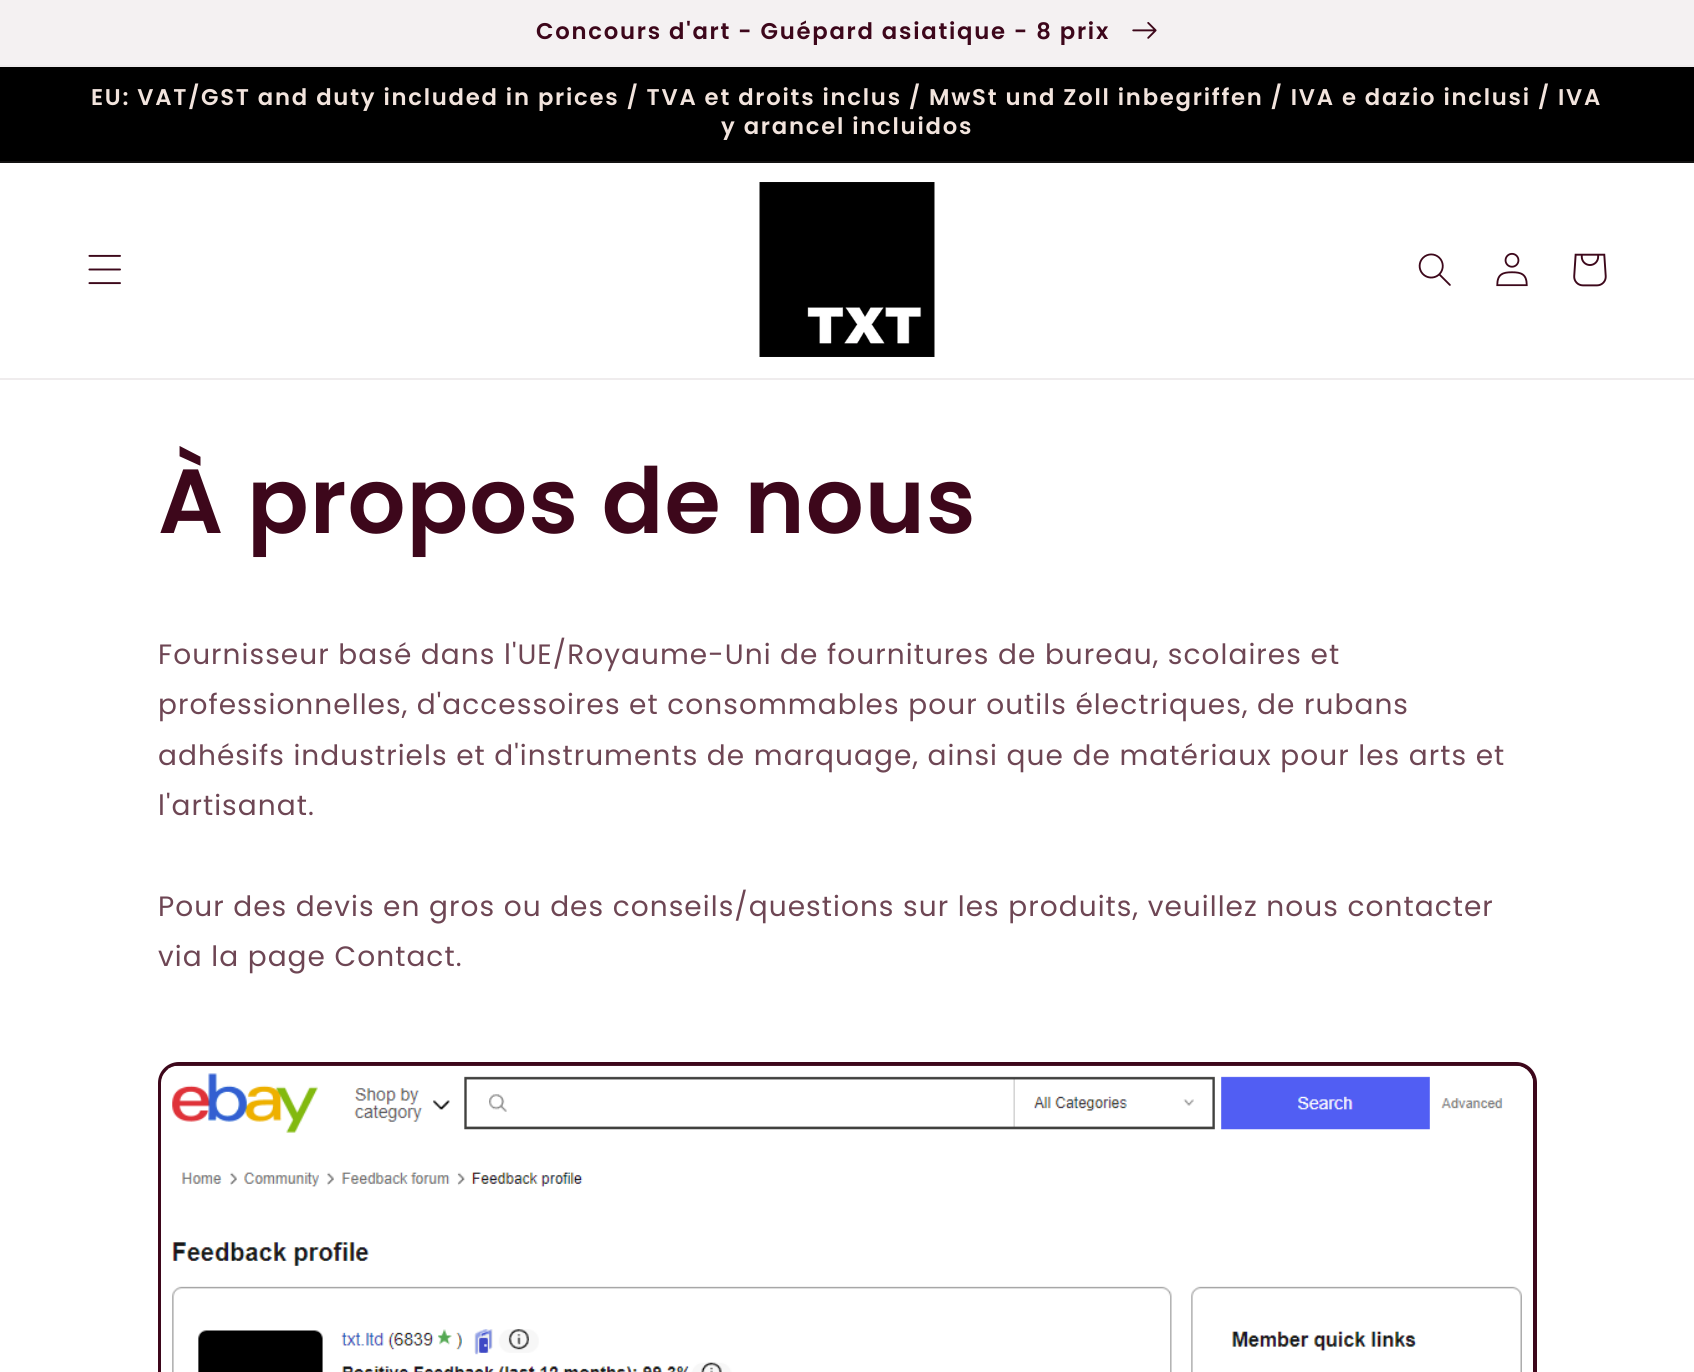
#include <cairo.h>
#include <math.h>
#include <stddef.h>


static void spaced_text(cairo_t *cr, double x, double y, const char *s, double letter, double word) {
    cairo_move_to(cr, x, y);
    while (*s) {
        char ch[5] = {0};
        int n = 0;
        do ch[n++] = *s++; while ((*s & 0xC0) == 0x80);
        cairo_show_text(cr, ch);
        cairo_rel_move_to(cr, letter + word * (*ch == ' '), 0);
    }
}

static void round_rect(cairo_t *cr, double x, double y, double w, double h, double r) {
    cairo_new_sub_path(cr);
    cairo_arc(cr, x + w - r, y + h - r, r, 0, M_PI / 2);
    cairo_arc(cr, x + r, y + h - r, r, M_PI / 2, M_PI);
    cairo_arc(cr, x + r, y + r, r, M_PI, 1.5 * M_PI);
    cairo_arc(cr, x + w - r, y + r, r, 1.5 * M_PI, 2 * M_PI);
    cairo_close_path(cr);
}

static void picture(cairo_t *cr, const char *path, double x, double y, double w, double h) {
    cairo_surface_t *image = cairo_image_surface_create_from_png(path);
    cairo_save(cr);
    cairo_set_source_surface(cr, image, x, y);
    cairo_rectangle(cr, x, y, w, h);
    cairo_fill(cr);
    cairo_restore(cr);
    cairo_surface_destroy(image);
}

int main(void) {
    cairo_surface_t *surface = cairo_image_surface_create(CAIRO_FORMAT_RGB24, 1694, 1372);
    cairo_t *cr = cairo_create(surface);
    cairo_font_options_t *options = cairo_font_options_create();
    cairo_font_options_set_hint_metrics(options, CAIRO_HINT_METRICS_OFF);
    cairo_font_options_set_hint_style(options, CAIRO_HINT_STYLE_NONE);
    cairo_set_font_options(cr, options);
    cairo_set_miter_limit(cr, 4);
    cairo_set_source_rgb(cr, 1, 1, 1);
    cairo_paint(cr);
    cairo_set_source_rgb(cr, 0.937, 0.922, 0.929);
    cairo_rectangle(cr, 0, 65, 1694, 2);
    cairo_fill(cr);
    cairo_set_source_rgb(cr, 0.957, 0.945, 0.949);
    cairo_rectangle(cr, 0, 0, 1694, 65);
    cairo_fill(cr);
    cairo_select_font_face(cr, "Poppins SemiBold", CAIRO_FONT_SLANT_NORMAL, CAIRO_FONT_WEIGHT_NORMAL);
    cairo_set_font_size(cr, 22.75);
    cairo_set_source_rgb(cr, 0.239, 0.031, 0.106);
    spaced_text(cr, 536, 39, "Concours d'art - Guépard asiatique - 8 prix", 1.75, 0);
    picture(cr, "img1.png", 1132, 22, 25, 17);
    cairo_set_source_rgb(cr, 0, 0, 0);
    cairo_rectangle(cr, 0, 67, 1694, 94);
    cairo_fill(cr);
    cairo_set_source_rgb(cr, 0.075, 0.071, 0.071);
    cairo_rectangle(cr, 0, 161, 1694, 2);
    cairo_fill(cr);
    cairo_set_source_rgb(cr, 0.949, 0.894, 0.867);
    spaced_text(cr, 91, 105, "EU: VAT/GST and duty included in prices / TVA et droits inclus / MwSt und Zoll inbegriffen / IVA e dazio inclusi / IVA", 1.75, 0);
    spaced_text(cr, 721, 134, "y arancel incluidos", 1.75, 0);
    cairo_set_source_rgb(cr, 0.937, 0.922, 0.929);
    cairo_rectangle(cr, 0, 378, 1694, 2);
    cairo_fill(cr);
    picture(cr, "img2.png", 88, 254, 33, 31);
    picture(cr, "img3.png", 759, 182, 176, 175);
    picture(cr, "img4.png", 1418, 253, 33, 33);
    picture(cr, "img5.png", 1496, 252, 32, 35);
    picture(cr, "img6.png", 1573, 253, 34, 34);
    cairo_set_font_size(cr, 91);
    cairo_set_source_rgb(cr, 0.239, 0.031, 0.106);
    spaced_text(cr, 158, 533, "À propos de nous", 1.05, 0);
    cairo_select_font_face(cr, "Poppins", CAIRO_FONT_SLANT_NORMAL, CAIRO_FONT_WEIGHT_NORMAL);
    cairo_set_font_size(cr, 28);
    cairo_set_source_rgb(cr, 0.431, 0.275, 0.329);
    spaced_text(cr, 158, 664, "Fournisseur basé dans l'UE/Royaume-Uni de fournitures de bureau, scolaires et", 1.05, 0);
    spaced_text(cr, 158, 714, "professionnelles, d'accessoires et consommables pour outils électriques, de rubans", 1.05, 0);
    spaced_text(cr, 158, 765, "adhésifs industriels et d'instruments de marquage, ainsi que de matériaux pour les arts et", 1.05, 0);
    spaced_text(cr, 158, 815, "l'artisanat.", 1.05, 0);
    spaced_text(cr, 158, 916, "Pour des devis en gros ou des conseils/questions sur les produits, veuillez nous contacter", 1.05, 0);
    spaced_text(cr, 158, 966, "via la page Contact.", 1.05, 0);
    round_rect(cr, 160, 1064, 1375, 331, 19);
    cairo_set_source_rgb(cr, 0.239, 0.031, 0.106);
    cairo_set_line_width(cr, 4);
    cairo_stroke(cr);
    picture(cr, "img7.png", 161, 1065, 1372, 307);
    cairo_surface_write_to_png(surface, "page.png");
    cairo_font_options_destroy(options);
    cairo_destroy(cr);
    cairo_surface_destroy(surface);
    return 0;
}
